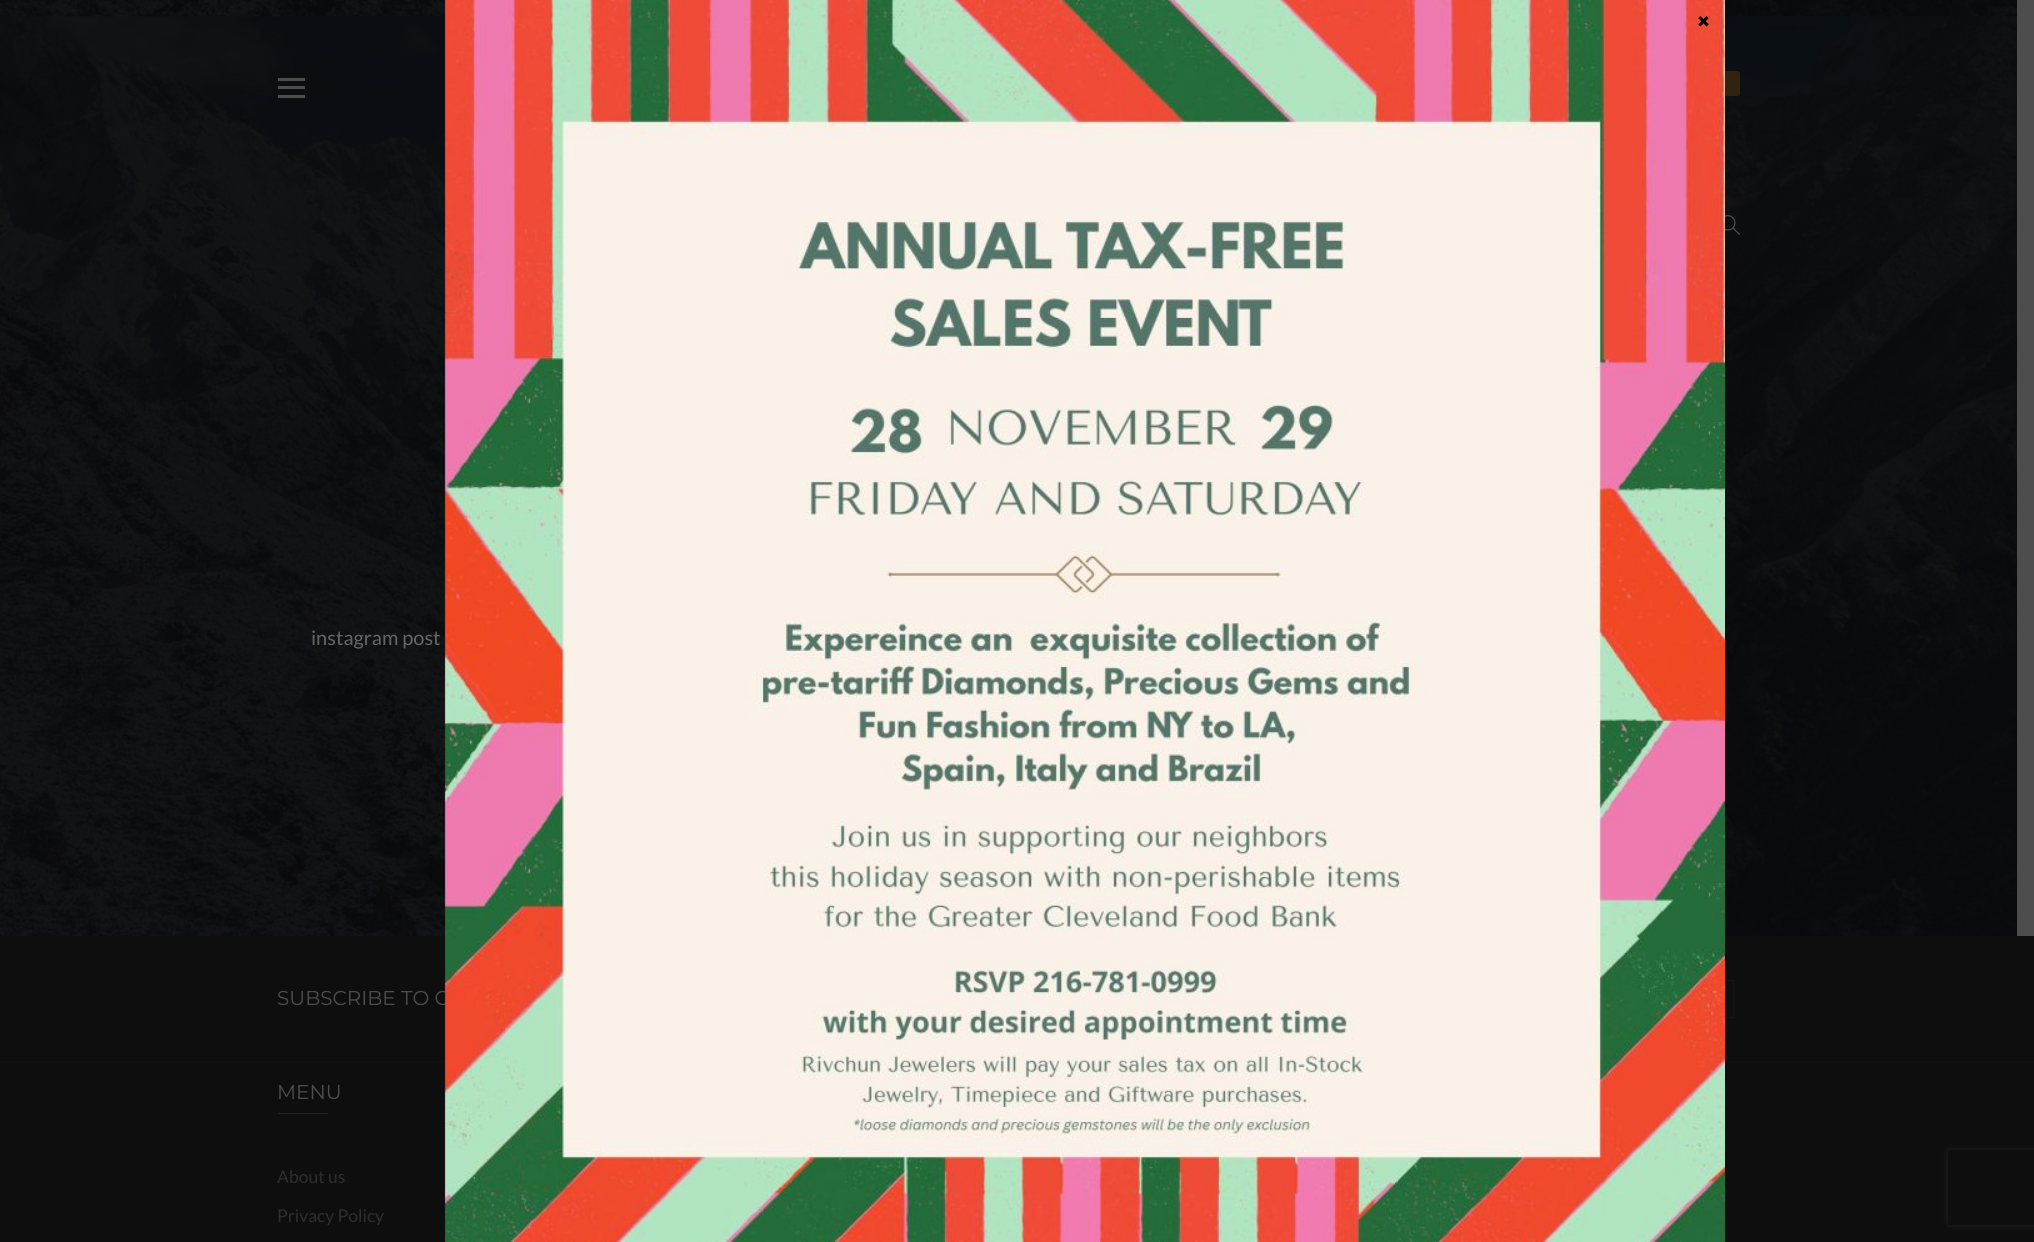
#include <cairo.h>
#include <math.h>
#include <stddef.h>


static void round_rect(cairo_t *cr, double x, double y, double w, double h, double r) {
    cairo_new_sub_path(cr);
    cairo_arc(cr, x + w - r, y + h - r, r, 0, M_PI / 2);
    cairo_arc(cr, x + r, y + h - r, r, M_PI / 2, M_PI);
    cairo_arc(cr, x + r, y + r, r, M_PI, 1.5 * M_PI);
    cairo_arc(cr, x + w - r, y + r, r, 1.5 * M_PI, 2 * M_PI);
    cairo_close_path(cr);
}

static void shadow(cairo_t *cr, double x, double y, double w, double h, double r, double blur, double alpha) {
    cairo_push_group_with_content(cr, CAIRO_CONTENT_ALPHA);
    cairo_set_operator(cr, CAIRO_OPERATOR_SOURCE);
    for (int i = 15; i >= -15 && fmin(w, h) + blur * i / 3 > 0; i -= 2) {
        double e = blur * i / 6;
        cairo_set_source_rgba(cr, 0, 0, 0, alpha * erfc((i - 1) / 8.5) / 2);
        round_rect(cr, x - e, y - e, w + 2 * e, h + 2 * e, fmax(0, fmin(r + e + blur * .6, fmin(w, h) / 2 + e)));
        cairo_fill(cr);
    }
    cairo_pattern_t *soft = cairo_pop_group(cr);
    cairo_mask(cr, soft);
    cairo_pattern_destroy(soft);
}

static void picture(cairo_t *cr, const char *path, double x, double y, double w, double h) {
    cairo_surface_t *image = cairo_image_surface_create_from_png(path);
    cairo_save(cr);
    cairo_set_source_surface(cr, image, x, y);
    cairo_rectangle(cr, x, y, w, h);
    cairo_fill(cr);
    cairo_restore(cr);
    cairo_surface_destroy(image);
}

int main(void) {
    cairo_surface_t *surface = cairo_image_surface_create(CAIRO_FORMAT_RGB24, 2034, 1242);
    cairo_t *cr = cairo_create(surface);
    cairo_font_options_t *options = cairo_font_options_create();
    cairo_font_options_set_hint_metrics(options, CAIRO_HINT_METRICS_OFF);
    cairo_font_options_set_hint_style(options, CAIRO_HINT_STYLE_NONE);
    cairo_set_font_options(cr, options);
    cairo_set_miter_limit(cr, 4);
    cairo_set_source_rgb(cr, 0.302, 0.302, 0.302);
    cairo_paint(cr);
    picture(cr, "img3.png", 0, 0, 2017, 936);
    cairo_set_source_rgb(cr, 0.188, 0.141, 0.063);
    round_rect(cr, 1715, 71, 25, 25, 2.5);
    cairo_fill(cr);
    cairo_set_source_rgb(cr, 0.055, 0.055, 0.055);
    cairo_rectangle(cr, 0, 936, 2034, 306);
    cairo_fill(cr);
    cairo_set_source_rgb(cr, 0.067, 0.067, 0.067);
    cairo_rectangle(cr, 0, 1061, 2034, 1);
    cairo_fill(cr);
    cairo_select_font_face(cr, "Montserrat", CAIRO_FONT_SLANT_NORMAL, CAIRO_FONT_WEIGHT_NORMAL);
    cairo_set_font_size(cr, 20);
    cairo_set_source_rgb(cr, 0.302, 0.302, 0.302);
    cairo_move_to(cr, 277, 1005);
    cairo_show_text(cr, "SUBSCRIBE TO O");
    cairo_rectangle(cr, 1696.5, 980.5, 37, 37);
    cairo_set_source_rgb(cr, 0.082, 0.082, 0.082);
    cairo_set_line_width(cr, 1);
    cairo_stroke(cr);
    picture(cr, "img1.png", 444, 0, 1281, 1242);
    cairo_select_font_face(cr, "Montserrat", CAIRO_FONT_SLANT_NORMAL, CAIRO_FONT_WEIGHT_BOLD);
    cairo_set_font_size(cr, 25);
    cairo_set_source_rgb(cr, 0, 0, 0);
    cairo_move_to(cr, 1696, 30);
    cairo_show_text(cr, "×");
    cairo_select_font_face(cr, "Lato", CAIRO_FONT_SLANT_NORMAL, CAIRO_FONT_WEIGHT_NORMAL);
    cairo_set_font_size(cr, 20);
    cairo_set_source_rgb(cr, 0.4, 0.4, 0.4);
    cairo_move_to(cr, 311, 645);
    cairo_show_text(cr, "instagram post");
    cairo_set_source_rgb(cr, 0.302, 0.302, 0.302);
    cairo_rectangle(cr, 278, 86, 27, 3);
    cairo_fill(cr);
    cairo_rectangle(cr, 278, 78, 27, 3);
    cairo_fill(cr);
    cairo_rectangle(cr, 278, 95, 27, 3);
    cairo_fill(cr);
    picture(cr, "img2.png", 1725, 215, 15, 20);
    cairo_select_font_face(cr, "Montserrat", CAIRO_FONT_SLANT_NORMAL, CAIRO_FONT_WEIGHT_NORMAL);
    cairo_move_to(cr, 277, 1099);
    cairo_show_text(cr, "MENU");
    cairo_set_source_rgb(cr, 0.188, 0.141, 0.063);
    cairo_rectangle(cr, 278, 1113, 50, 1);
    cairo_fill(cr);
    cairo_select_font_face(cr, "Lato", CAIRO_FONT_SLANT_NORMAL, CAIRO_FONT_WEIGHT_NORMAL);
    cairo_set_font_size(cr, 17.5);
    cairo_set_source_rgb(cr, 0.18, 0.18, 0.18);
    cairo_move_to(cr, 277, 1183);
    cairo_show_text(cr, "About us");
    cairo_move_to(cr, 277, 1222);
    cairo_show_text(cr, "Privacy Policy");
    cairo_save(cr);
    cairo_set_fill_rule(cr, CAIRO_FILL_RULE_EVEN_ODD);
    cairo_new_path(cr);
    cairo_move_to(cr, 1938, 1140);
    cairo_line_to(cr, 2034, 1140);
    cairo_line_to(cr, 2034, 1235);
    cairo_line_to(cr, 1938, 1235);
    cairo_close_path(cr);
    cairo_move_to(cr, 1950.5, 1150);
    cairo_line_to(cr, 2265.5, 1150);
    cairo_curve_to(cr, 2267, 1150, 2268, 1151, 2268, 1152.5);
    cairo_line_to(cr, 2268, 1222.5);
    cairo_curve_to(cr, 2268, 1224, 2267, 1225, 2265.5, 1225);
    cairo_line_to(cr, 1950.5, 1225);
    cairo_curve_to(cr, 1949, 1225, 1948, 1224, 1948, 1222.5);
    cairo_line_to(cr, 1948, 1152.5);
    cairo_curve_to(cr, 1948, 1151, 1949, 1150, 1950.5, 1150);
    cairo_close_path(cr);
    cairo_clip(cr);
    cairo_set_source_rgb(cr, 0.149, 0.149, 0.149);
    shadow(cr, 1948, 1150, 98, 75, 2.5, 3, 1);
    cairo_restore(cr);
    cairo_surface_write_to_png(surface, "page.png");
    cairo_font_options_destroy(options);
    cairo_destroy(cr);
    cairo_surface_destroy(surface);
    return 0;
}
